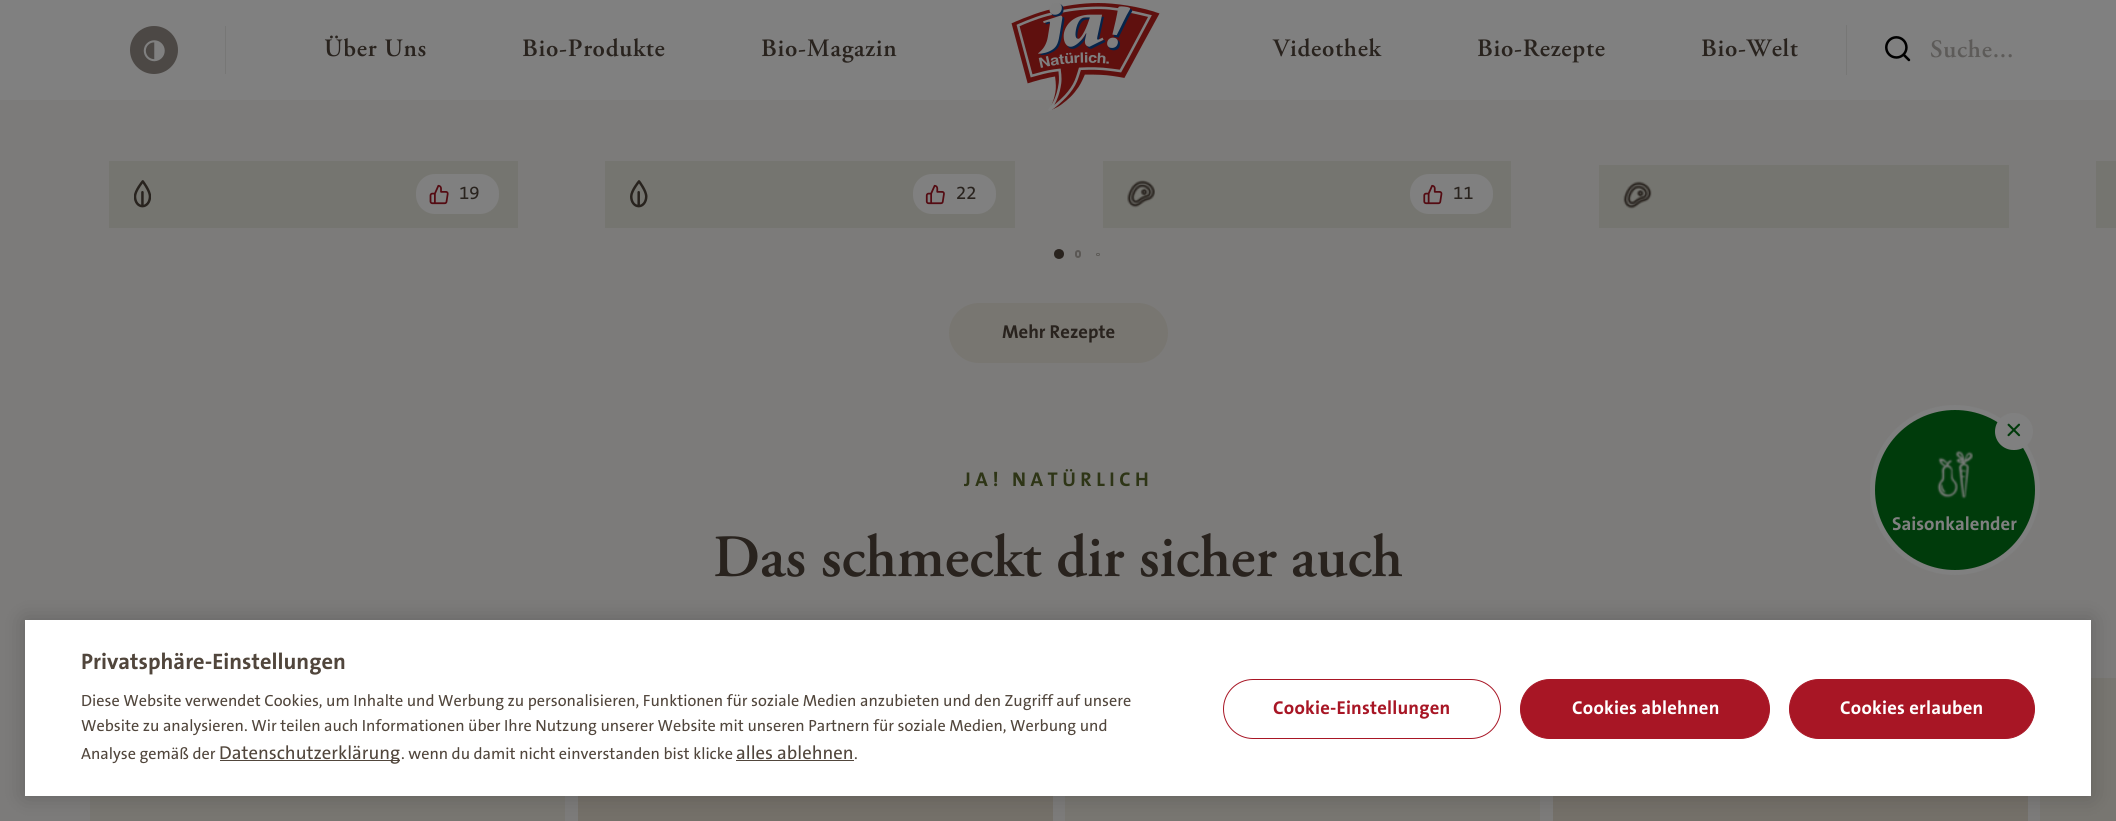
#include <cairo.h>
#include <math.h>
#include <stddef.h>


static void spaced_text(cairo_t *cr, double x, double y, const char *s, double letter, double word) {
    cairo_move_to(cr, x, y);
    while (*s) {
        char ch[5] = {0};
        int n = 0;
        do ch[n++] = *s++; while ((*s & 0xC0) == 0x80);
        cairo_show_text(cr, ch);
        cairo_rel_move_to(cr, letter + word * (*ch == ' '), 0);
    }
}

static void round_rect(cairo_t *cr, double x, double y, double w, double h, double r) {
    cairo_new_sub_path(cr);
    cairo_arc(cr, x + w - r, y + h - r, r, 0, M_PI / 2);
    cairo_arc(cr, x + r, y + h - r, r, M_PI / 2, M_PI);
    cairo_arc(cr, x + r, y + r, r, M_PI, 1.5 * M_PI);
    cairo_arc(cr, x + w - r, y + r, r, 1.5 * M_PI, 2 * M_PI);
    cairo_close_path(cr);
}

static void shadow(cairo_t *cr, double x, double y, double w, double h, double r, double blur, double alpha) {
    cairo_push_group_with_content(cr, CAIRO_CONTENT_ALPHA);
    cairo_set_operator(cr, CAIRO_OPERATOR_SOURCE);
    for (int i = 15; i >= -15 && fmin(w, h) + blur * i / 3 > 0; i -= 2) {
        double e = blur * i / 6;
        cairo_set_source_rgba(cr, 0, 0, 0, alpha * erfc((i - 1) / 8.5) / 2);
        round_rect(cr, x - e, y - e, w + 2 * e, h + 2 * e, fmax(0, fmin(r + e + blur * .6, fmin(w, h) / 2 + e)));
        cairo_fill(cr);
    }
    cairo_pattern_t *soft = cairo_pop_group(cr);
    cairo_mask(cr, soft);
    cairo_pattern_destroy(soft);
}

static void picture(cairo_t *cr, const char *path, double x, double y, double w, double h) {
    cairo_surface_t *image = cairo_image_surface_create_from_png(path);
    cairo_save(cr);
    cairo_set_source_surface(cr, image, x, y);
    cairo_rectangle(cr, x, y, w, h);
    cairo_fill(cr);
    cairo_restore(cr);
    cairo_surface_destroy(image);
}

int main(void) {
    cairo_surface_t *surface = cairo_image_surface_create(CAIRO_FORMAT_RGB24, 2116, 821);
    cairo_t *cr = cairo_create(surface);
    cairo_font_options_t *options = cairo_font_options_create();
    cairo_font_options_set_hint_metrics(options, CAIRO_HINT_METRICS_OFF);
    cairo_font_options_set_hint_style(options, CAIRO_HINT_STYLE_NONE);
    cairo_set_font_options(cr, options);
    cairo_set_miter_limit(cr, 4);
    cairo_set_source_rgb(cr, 0.486, 0.482, 0.478);
    cairo_paint(cr);
    cairo_set_source_rgb(cr, 0.502, 0.502, 0.502);
    cairo_rectangle(cr, 0, 0, 2116, 100);
    cairo_fill(cr);
    cairo_set_source_rgb(cr, 0.467, 0.467, 0.463);
    cairo_rectangle(cr, 225, 26, 1, 48);
    cairo_fill(cr);
    cairo_set_source_rgb(cr, 0.298, 0.282, 0.271);
    cairo_arc(cr, 154, 50, 24, 0, 2 * M_PI);
    cairo_fill(cr);
    picture(cr, "img1.png", 143, 40, 22, 22);
    cairo_select_font_face(cr, "Adobe Garamond SemiBold", CAIRO_FONT_SLANT_NORMAL, CAIRO_FONT_WEIGHT_NORMAL);
    cairo_set_font_size(cr, 25);
    cairo_set_source_rgb(cr, 0.161, 0.137, 0.118);
    spaced_text(cr, 324, 56, "Über Uns", 0.75, 0);
    spaced_text(cr, 522, 56, "Bio-Produkte", 0.75, 0);
    spaced_text(cr, 761, 56, "Bio-Magazin", 0.75, 0);
    picture(cr, "img2.png", 1011, 3, 149, 108);
    spaced_text(cr, 1273, 56, "Videothek", 0.75, 0);
    spaced_text(cr, 1477, 56, "Bio-Rezepte", 0.75, 0);
    spaced_text(cr, 1701, 56, "Bio-Welt", 0.75, 0);
    cairo_set_source_rgb(cr, 0.467, 0.467, 0.463);
    cairo_rectangle(cr, 1846, 25, 1, 50);
    cairo_fill(cr);
    picture(cr, "img3.png", 1885, 36, 26, 26);
    cairo_set_source_rgb(cr, 0.365, 0.357, 0.349);
    spaced_text(cr, 1930, 57, "Suche...", 0.75, 0);
    cairo_set_source_rgb(cr, 0.459, 0.459, 0.439);
    cairo_rectangle(cr, 109, 161, 409, 67);
    cairo_fill(cr);
    picture(cr, "img4.png", 134, 180, 17, 28);
    cairo_set_source_rgb(cr, 0.502, 0.502, 0.502);
    round_rect(cr, 417.5, 175.5, 80, 37, 17.5);
    cairo_fill_preserve(cr);
    cairo_set_line_width(cr, 3);
    cairo_stroke(cr);
    picture(cr, "img5.png", 429, 184, 20, 21);
    cairo_select_font_face(cr, "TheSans", CAIRO_FONT_SLANT_NORMAL, CAIRO_FONT_WEIGHT_NORMAL);
    cairo_set_font_size(cr, 18.75);
    cairo_set_source_rgb(cr, 0.161, 0.137, 0.118);
    cairo_move_to(cr, 459, 199);
    cairo_show_text(cr, "19");
    cairo_set_source_rgb(cr, 0.459, 0.459, 0.439);
    cairo_rectangle(cr, 605, 161, 410, 67);
    cairo_fill(cr);
    picture(cr, "img6.png", 630, 180, 18, 28);
    cairo_set_source_rgb(cr, 0.502, 0.502, 0.502);
    round_rect(cr, 914.5, 175.5, 80, 37, 17.5);
    cairo_fill_preserve(cr);
    cairo_stroke(cr);
    picture(cr, "img7.png", 925, 184, 20, 21);
    cairo_set_source_rgb(cr, 0.161, 0.137, 0.118);
    cairo_move_to(cr, 956, 199);
    cairo_show_text(cr, "22");
    cairo_set_source_rgb(cr, 0.459, 0.459, 0.439);
    cairo_rectangle(cr, 1103, 161, 408, 67);
    cairo_fill(cr);
    picture(cr, "img8.png", 1127, 180, 28, 28);
    cairo_set_source_rgb(cr, 0.502, 0.502, 0.502);
    round_rect(cr, 1411.5, 175.5, 80, 37, 17.5);
    cairo_fill_preserve(cr);
    cairo_stroke(cr);
    picture(cr, "img9.png", 1423, 184, 20, 21);
    cairo_set_source_rgb(cr, 0.161, 0.137, 0.118);
    cairo_move_to(cr, 1453, 199);
    cairo_show_text(cr, "11");
    cairo_set_source_rgb(cr, 0.459, 0.459, 0.439);
    cairo_rectangle(cr, 1599, 165, 410, 63);
    cairo_fill(cr);
    picture(cr, "img10.png", 1623, 181, 29, 28);
    cairo_rectangle(cr, 2096, 161, 20, 67);
    cairo_fill(cr);
    cairo_set_source_rgb(cr, 0.161, 0.137, 0.118);
    cairo_arc(cr, 1059, 254, 3.5, 0, 2 * M_PI);
    cairo_fill_preserve(cr);
    cairo_stroke(cr);
    round_rect(cr, 1076, 251, 4, 6, 2);
    cairo_set_source_rgb(cr, 0.357, 0.345, 0.333);
    cairo_set_line_width(cr, 2);
    cairo_stroke(cr);
    round_rect(cr, 1096.45, 253.45, 3.1, 2.1, 1.05);
    cairo_set_line_width(cr, 0.9);
    cairo_stroke(cr);
    cairo_set_source_rgb(cr, 0.471, 0.463, 0.443);
    round_rect(cr, 949, 303, 219, 60, 30);
    cairo_fill(cr);
    cairo_select_font_face(cr, "TheSans", CAIRO_FONT_SLANT_NORMAL, CAIRO_FONT_WEIGHT_BOLD);
    cairo_set_source_rgb(cr, 0.161, 0.137, 0.118);
    cairo_move_to(cr, 1002, 338);
    cairo_show_text(cr, "Mehr Rezepte");
    cairo_set_font_size(cr, 20);
    cairo_set_source_rgb(cr, 0.18, 0.208, 0.086);
    spaced_text(cr, 964, 486, "JA! NATÜRLICH", 4.5, 0);
    cairo_select_font_face(cr, "Adobe Garamond SemiBold", CAIRO_FONT_SLANT_NORMAL, CAIRO_FONT_WEIGHT_NORMAL);
    cairo_set_font_size(cr, 60);
    cairo_set_source_rgb(cr, 0.161, 0.137, 0.118);
    cairo_move_to(cr, 713, 576);
    cairo_show_text(cr, "Das schmeckt dir sicher auch");
    cairo_set_source_rgb(cr, 0.471, 0.463, 0.443);
    cairo_rectangle(cr, 90, 796, 475, 25);
    cairo_fill(cr);
    cairo_set_source_rgb(cr, 0.455, 0.439, 0.412);
    cairo_rectangle(cr, 578, 796, 475, 25);
    cairo_fill(cr);
    cairo_set_source_rgb(cr, 0.471, 0.463, 0.443);
    cairo_rectangle(cr, 1065, 796, 475, 25);
    cairo_fill(cr);
    cairo_set_source_rgb(cr, 0.455, 0.439, 0.412);
    cairo_rectangle(cr, 1553, 796, 475, 25);
    cairo_fill(cr);
    cairo_set_source_rgb(cr, 0.471, 0.463, 0.443);
    cairo_rectangle(cr, 2040, 678, 76, 143);
    cairo_fill(cr);
    cairo_set_source_rgb(cr, 0, 0.231, 0.043);
    cairo_arc(cr, 1955, 490, 82.5, 0, 2 * M_PI);
    cairo_fill_preserve(cr);
    cairo_set_source_rgb(cr, 0.502, 0.502, 0.502);
    cairo_set_line_width(cr, 5);
    cairo_stroke(cr);
    round_rect(cr, 1995, 413, 38, 37, 18.5);
    cairo_fill(cr);
    picture(cr, "img11.png", 2007, 423, 14, 14);
    picture(cr, "img12.png", 1937, 450, 36, 49);
    cairo_select_font_face(cr, "TheSans", CAIRO_FONT_SLANT_NORMAL, CAIRO_FONT_WEIGHT_BOLD);
    cairo_set_font_size(cr, 18.75);
    cairo_move_to(cr, 1892, 530);
    cairo_show_text(cr, "Saisonkalender");
    cairo_set_source_rgb(cr, 0, 0, 0);
    shadow(cr, 25, 620, 2066, 176, 0, 11, 0.2);
    cairo_set_source_rgb(cr, 1, 1, 1);
    cairo_rectangle(cr, 25, 620, 2066, 176);
    cairo_fill(cr);
    cairo_set_font_size(cr, 22.5);
    cairo_set_source_rgb(cr, 0.318, 0.275, 0.235);
    cairo_move_to(cr, 81, 669);
    cairo_show_text(cr, "Privatsphäre-Einstellungen");
    cairo_select_font_face(cr, "TheSans", CAIRO_FONT_SLANT_NORMAL, CAIRO_FONT_WEIGHT_NORMAL);
    cairo_set_font_size(cr, 16.25);
    cairo_move_to(cr, 81, 706);
    cairo_show_text(cr, "Diese Website verwendet Cookies, um Inhalte und Werbung zu personalisieren, Funktionen für soziale Medien anzubieten und den Zugriff auf unsere");
    cairo_move_to(cr, 81, 731);
    cairo_show_text(cr, "Website zu analysieren. Wir teilen auch Informationen über Ihre Nutzung unserer Website mit unseren Partnern für soziale Medien, Werbung und");
    cairo_move_to(cr, 81, 759);
    cairo_show_text(cr, "Analyse gemäß der");
    cairo_rectangle(cr, 220, 760, 180, 1);
    cairo_fill(cr);
    cairo_set_font_size(cr, 18.75);
    cairo_move_to(cr, 219, 759);
    cairo_show_text(cr, "Datenschutzerklärung");
    cairo_set_font_size(cr, 16.25);
    cairo_move_to(cr, 401, 759);
    cairo_show_text(cr, ". wenn du damit nicht einverstanden bist klicke");
    cairo_set_font_size(cr, 18.75);
    cairo_move_to(cr, 736, 759);
    cairo_show_text(cr, "alles ablehnen");
    cairo_set_font_size(cr, 16.25);
    cairo_move_to(cr, 854, 759);
    cairo_show_text(cr, ".");
    cairo_rectangle(cr, 736, 760, 118, 1);
    cairo_fill(cr);
    round_rect(cr, 1223.5, 679.5, 277, 59, 29.5);
    cairo_set_source_rgb(cr, 0.659, 0.086, 0.145);
    cairo_set_line_width(cr, 1);
    cairo_stroke(cr);
    cairo_select_font_face(cr, "TheSans", CAIRO_FONT_SLANT_NORMAL, CAIRO_FONT_WEIGHT_BOLD);
    cairo_set_font_size(cr, 18.75);
    spaced_text(cr, 1273, 714, "Cookie-Einstellungen", 0.2, 0);
    round_rect(cr, 1520.5, 679.5, 249, 59, 29.5);
    cairo_fill_preserve(cr);
    cairo_stroke(cr);
    cairo_set_source_rgb(cr, 1, 1, 1);
    spaced_text(cr, 1572, 714, "Cookies ablehnen", 0.2, 0);
    cairo_set_source_rgb(cr, 0.659, 0.086, 0.145);
    round_rect(cr, 1789.5, 679.5, 245, 59, 29.5);
    cairo_fill_preserve(cr);
    cairo_stroke(cr);
    cairo_set_source_rgb(cr, 1, 1, 1);
    spaced_text(cr, 1840, 714, "Cookies erlauben", 0.2, 0);
    cairo_surface_write_to_png(surface, "page.png");
    cairo_font_options_destroy(options);
    cairo_destroy(cr);
    cairo_surface_destroy(surface);
    return 0;
}
